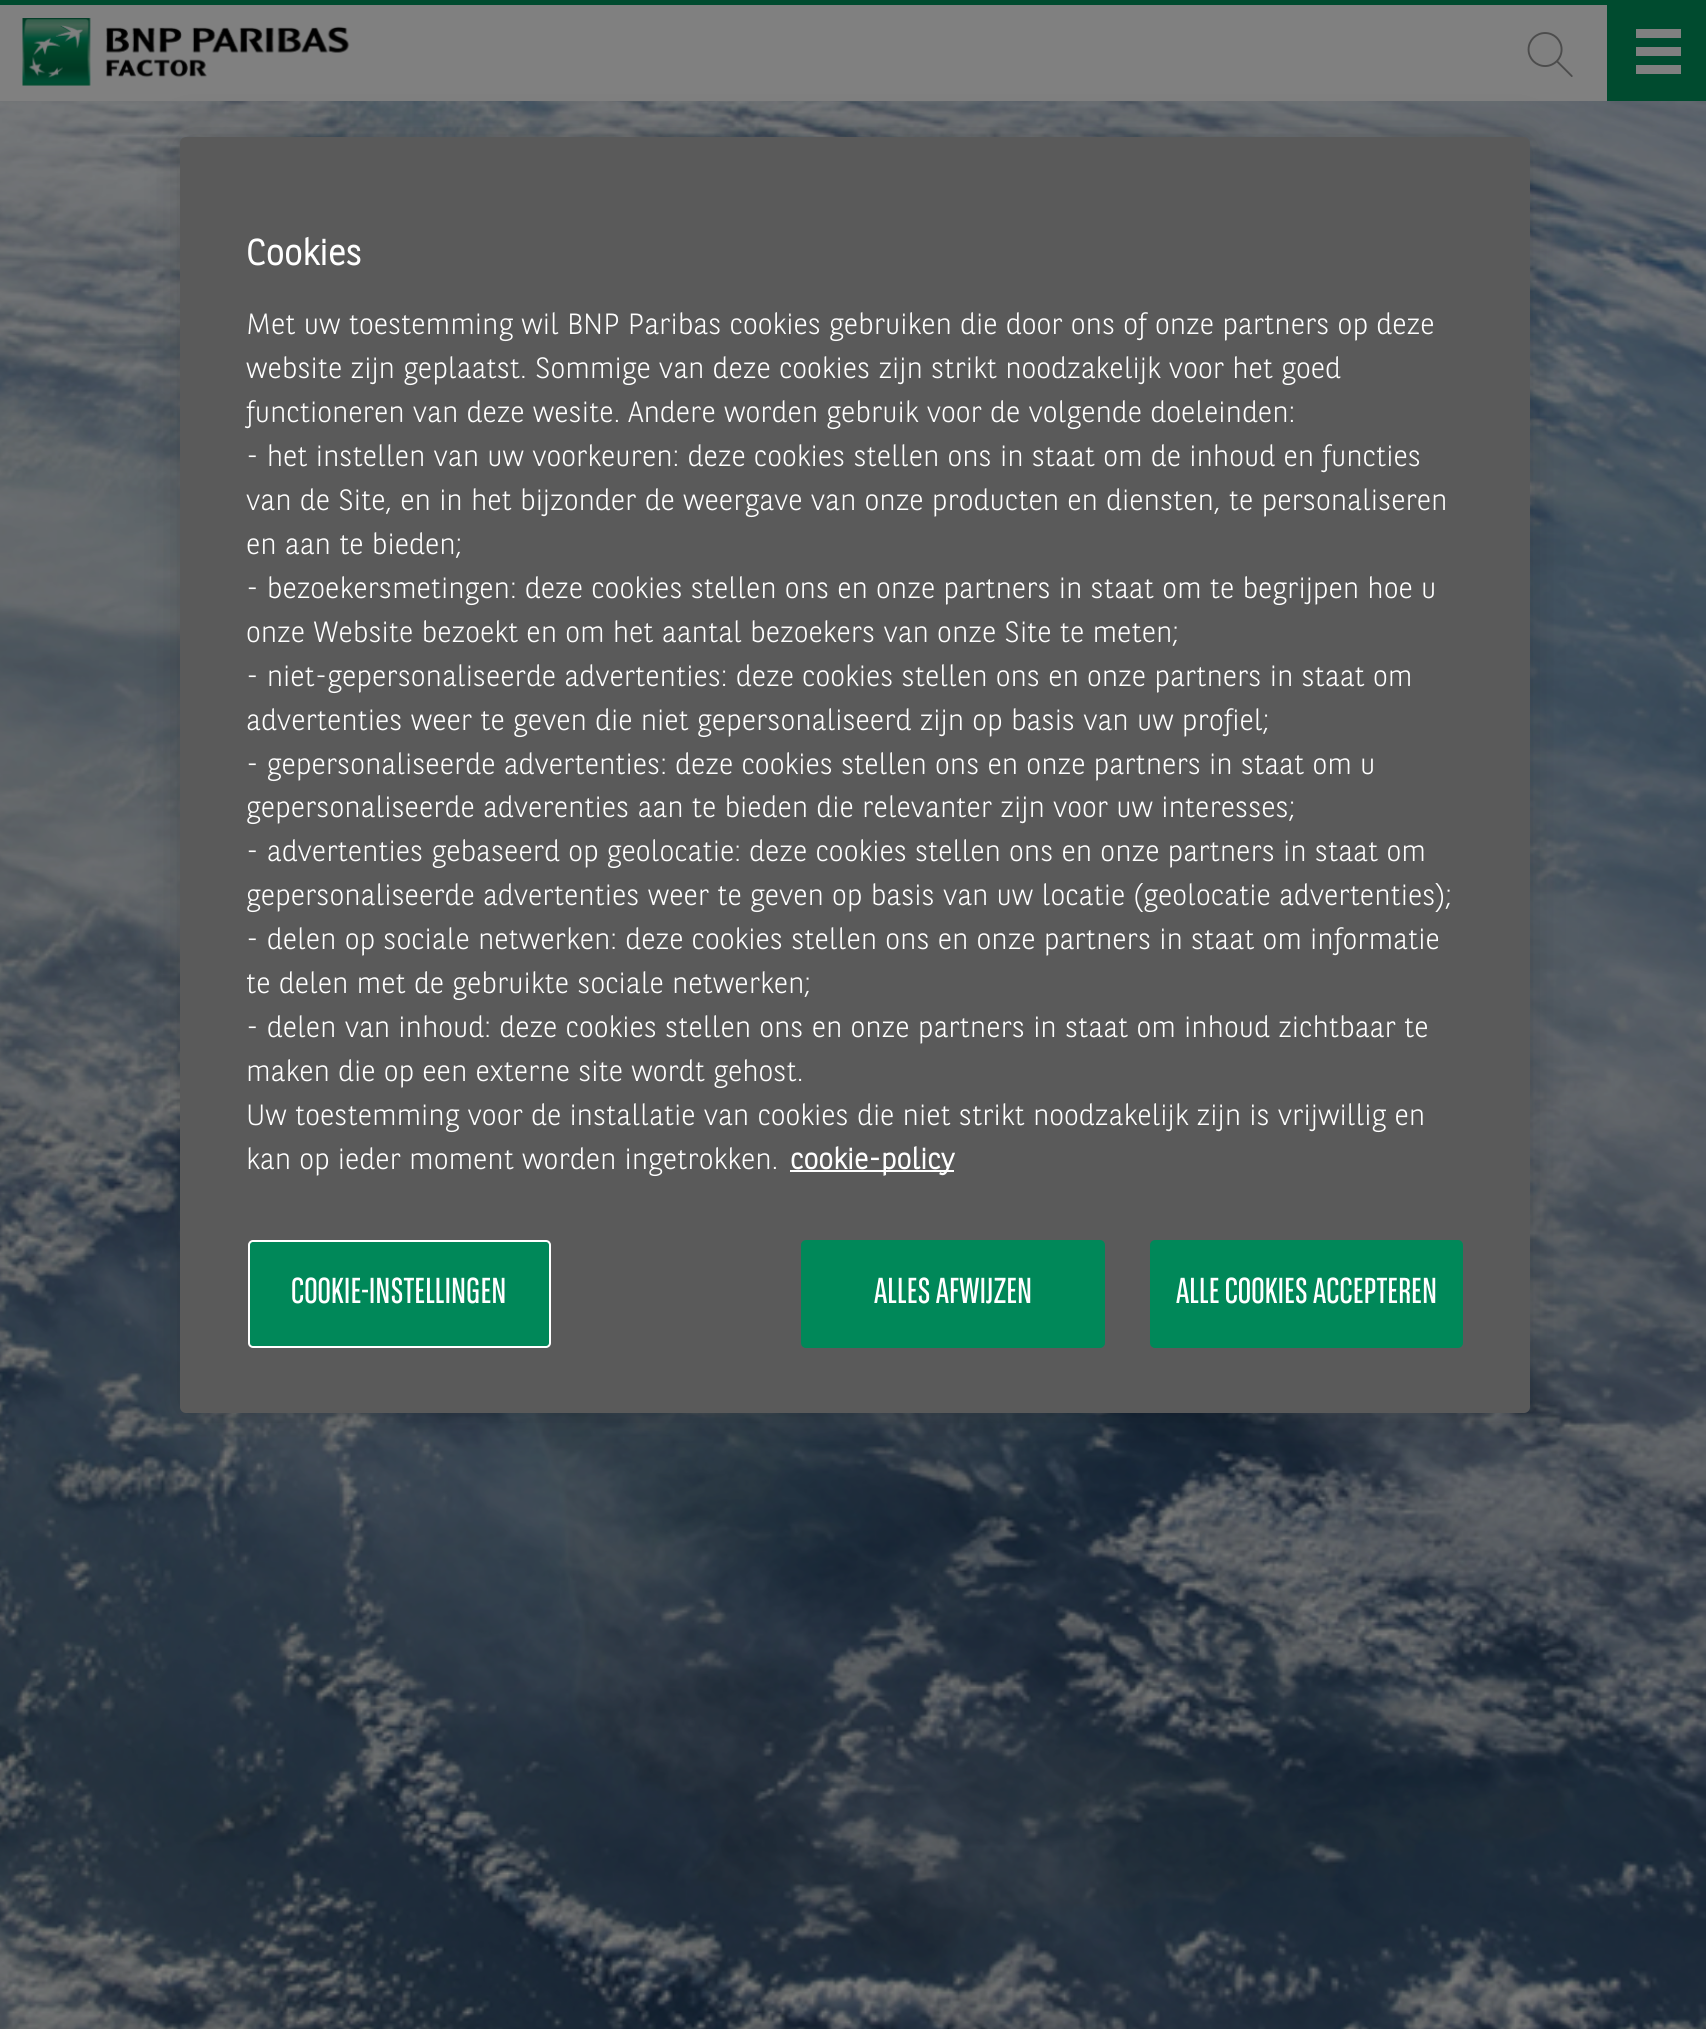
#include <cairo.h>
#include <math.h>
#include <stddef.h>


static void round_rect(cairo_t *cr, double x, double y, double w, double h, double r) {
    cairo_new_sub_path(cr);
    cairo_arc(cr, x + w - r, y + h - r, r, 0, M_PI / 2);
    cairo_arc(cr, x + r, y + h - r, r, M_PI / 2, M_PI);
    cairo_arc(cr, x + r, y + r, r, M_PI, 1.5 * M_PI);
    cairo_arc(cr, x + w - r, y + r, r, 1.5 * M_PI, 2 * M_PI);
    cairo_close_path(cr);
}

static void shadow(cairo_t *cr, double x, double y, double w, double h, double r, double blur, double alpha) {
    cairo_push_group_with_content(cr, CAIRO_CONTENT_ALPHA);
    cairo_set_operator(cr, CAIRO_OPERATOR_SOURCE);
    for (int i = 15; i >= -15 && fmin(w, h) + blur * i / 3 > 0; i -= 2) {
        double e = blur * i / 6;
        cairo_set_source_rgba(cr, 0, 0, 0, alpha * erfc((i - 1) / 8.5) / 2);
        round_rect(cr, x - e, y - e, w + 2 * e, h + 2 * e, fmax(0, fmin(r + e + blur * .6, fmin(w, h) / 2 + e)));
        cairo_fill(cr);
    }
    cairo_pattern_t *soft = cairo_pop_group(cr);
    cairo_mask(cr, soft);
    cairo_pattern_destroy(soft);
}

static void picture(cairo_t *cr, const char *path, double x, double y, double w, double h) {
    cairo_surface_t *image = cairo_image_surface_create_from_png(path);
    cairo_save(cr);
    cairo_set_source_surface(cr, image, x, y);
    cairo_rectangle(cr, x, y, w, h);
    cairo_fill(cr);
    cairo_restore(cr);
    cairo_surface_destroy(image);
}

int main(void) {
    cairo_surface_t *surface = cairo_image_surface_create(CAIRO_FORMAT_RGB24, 1706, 2029);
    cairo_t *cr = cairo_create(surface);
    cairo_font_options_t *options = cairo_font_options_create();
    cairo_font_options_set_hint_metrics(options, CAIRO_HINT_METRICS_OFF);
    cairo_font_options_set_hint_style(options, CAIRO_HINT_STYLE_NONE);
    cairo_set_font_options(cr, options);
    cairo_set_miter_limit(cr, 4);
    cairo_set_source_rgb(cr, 1, 1, 1);
    cairo_paint(cr);
    cairo_set_source_rgb(cr, 0.502, 0.502, 0.502);
    cairo_rectangle(cr, 0, 5, 1607, 96);
    cairo_fill(cr);
    cairo_set_source_rgb(cr, 0, 0.294, 0.184);
    cairo_rectangle(cr, 0, 0, 1607, 5);
    cairo_fill(cr);
    picture(cr, "img1.png", 22, 18, 328, 68);
    picture(cr, "img2.png", 1527, 32, 46, 45);
    cairo_rectangle(cr, 1607, 0, 99, 101);
    cairo_fill(cr);
    cairo_set_source_rgb(cr, 0.502, 0.502, 0.502);
    cairo_rectangle(cr, 1636, 29, 45, 9);
    cairo_fill(cr);
    cairo_rectangle(cr, 1636, 47, 45, 9);
    cairo_fill(cr);
    cairo_rectangle(cr, 1636, 65, 45, 9);
    cairo_fill(cr);
    picture(cr, "img3.png", 0, 101, 1706, 1928);
    cairo_set_source_rgb(cr, 0, 0, 0);
    shadow(cr, 180, 137, 1350, 1276, 6, 20, 0.2);
    cairo_set_source_rgb(cr, 0.353, 0.353, 0.353);
    round_rect(cr, 180, 137, 1350, 1276, 6);
    cairo_fill(cr);
    cairo_select_font_face(cr, "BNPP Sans", CAIRO_FONT_SLANT_NORMAL, CAIRO_FONT_WEIGHT_BOLD);
    cairo_set_font_size(cr, 36);
    cairo_set_source_rgb(cr, 1, 1, 1);
    cairo_move_to(cr, 246, 265);
    cairo_show_text(cr, "Cookies");
    cairo_select_font_face(cr, "BNPP Sans Light", CAIRO_FONT_SLANT_NORMAL, CAIRO_FONT_WEIGHT_NORMAL);
    cairo_set_font_size(cr, 29.25);
    cairo_move_to(cr, 246, 334);
    cairo_show_text(cr, "Met uw toestemming wil BNP Paribas cookies gebruiken die door ons of onze partners op deze");
    cairo_move_to(cr, 246, 378);
    cairo_show_text(cr, "website zijn geplaatst. Sommige van deze cookies zijn strikt noodzakelijk voor het goed");
    cairo_move_to(cr, 246, 422);
    cairo_show_text(cr, "functioneren van deze wesite. Andere worden gebruik voor de volgende doeleinden:");
    cairo_move_to(cr, 246, 466);
    cairo_show_text(cr, "- het instellen van uw voorkeuren: deze cookies stellen ons in staat om de inhoud en functies");
    cairo_move_to(cr, 246, 510);
    cairo_show_text(cr, "van de Site, en in het bijzonder de weergave van onze producten en diensten, te personaliseren");
    cairo_move_to(cr, 246, 554);
    cairo_show_text(cr, "en aan te bieden;");
    cairo_move_to(cr, 246, 598);
    cairo_show_text(cr, "- bezoekersmetingen: deze cookies stellen ons en onze partners in staat om te begrijpen hoe u");
    cairo_move_to(cr, 246, 642);
    cairo_show_text(cr, "onze Website bezoekt en om het aantal bezoekers van onze Site te meten;");
    cairo_move_to(cr, 246, 686);
    cairo_show_text(cr, "- niet-gepersonaliseerde advertenties: deze cookies stellen ons en onze partners in staat om");
    cairo_move_to(cr, 246, 730);
    cairo_show_text(cr, "advertenties weer te geven die niet gepersonaliseerd zijn op basis van uw profiel;");
    cairo_move_to(cr, 246, 774);
    cairo_show_text(cr, "- gepersonaliseerde advertenties: deze cookies stellen ons en onze partners in staat om u");
    cairo_move_to(cr, 246, 817);
    cairo_show_text(cr, "gepersonaliseerde adverenties aan te bieden die relevanter zijn voor uw interesses;");
    cairo_move_to(cr, 246, 861);
    cairo_show_text(cr, "- advertenties gebaseerd op geolocatie: deze cookies stellen ons en onze partners in staat om");
    cairo_move_to(cr, 246, 905);
    cairo_show_text(cr, "gepersonaliseerde advertenties weer te geven op basis van uw locatie (geolocatie advertenties);");
    cairo_move_to(cr, 246, 949);
    cairo_show_text(cr, "- delen op sociale netwerken: deze cookies stellen ons en onze partners in staat om informatie");
    cairo_move_to(cr, 246, 993);
    cairo_show_text(cr, "te delen met de gebruikte sociale netwerken;");
    cairo_move_to(cr, 246, 1037);
    cairo_show_text(cr, "- delen van inhoud: deze cookies stellen ons en onze partners in staat om inhoud zichtbaar te");
    cairo_move_to(cr, 246, 1081);
    cairo_show_text(cr, "maken die op een externe site wordt gehost.");
    cairo_move_to(cr, 246, 1125);
    cairo_show_text(cr, "Uw toestemming voor de installatie van cookies die niet strikt noodzakelijk zijn is vrijwillig en");
    cairo_move_to(cr, 246, 1169);
    cairo_show_text(cr, "kan op ieder moment worden ingetrokken.");
    cairo_rectangle(cr, 790, 1170, 164, 2);
    cairo_fill(cr);
    cairo_select_font_face(cr, "BNPP Sans", CAIRO_FONT_SLANT_NORMAL, CAIRO_FONT_WEIGHT_BOLD);
    cairo_move_to(cr, 790, 1169);
    cairo_show_text(cr, "cookie-policy");
    cairo_set_source_rgb(cr, 0, 0.533, 0.349);
    round_rect(cr, 249, 1241, 301, 106, 4);
    cairo_fill_preserve(cr);
    cairo_set_source_rgb(cr, 1, 1, 1);
    cairo_stroke(cr);
    cairo_select_font_face(cr, "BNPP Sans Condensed", CAIRO_FONT_SLANT_NORMAL, CAIRO_FONT_WEIGHT_NORMAL);
    cairo_set_font_size(cr, 36);
    cairo_move_to(cr, 291, 1303);
    cairo_show_text(cr, "COOKIE-INSTELLINGEN");
    cairo_set_source_rgb(cr, 0, 0.533, 0.349);
    round_rect(cr, 802, 1241, 302, 106, 4);
    cairo_fill_preserve(cr);
    cairo_stroke(cr);
    cairo_set_source_rgb(cr, 1, 1, 1);
    cairo_move_to(cr, 874, 1303);
    cairo_show_text(cr, "ALLES AFWIJZEN");
    cairo_set_source_rgb(cr, 0, 0.533, 0.349);
    round_rect(cr, 1151, 1241, 311, 106, 4);
    cairo_fill_preserve(cr);
    cairo_stroke(cr);
    cairo_set_source_rgb(cr, 1, 1, 1);
    cairo_move_to(cr, 1176, 1303);
    cairo_show_text(cr, "ALLE COOKIES ACCEPTEREN");
    cairo_surface_write_to_png(surface, "page.png");
    cairo_font_options_destroy(options);
    cairo_destroy(cr);
    cairo_surface_destroy(surface);
    return 0;
}
